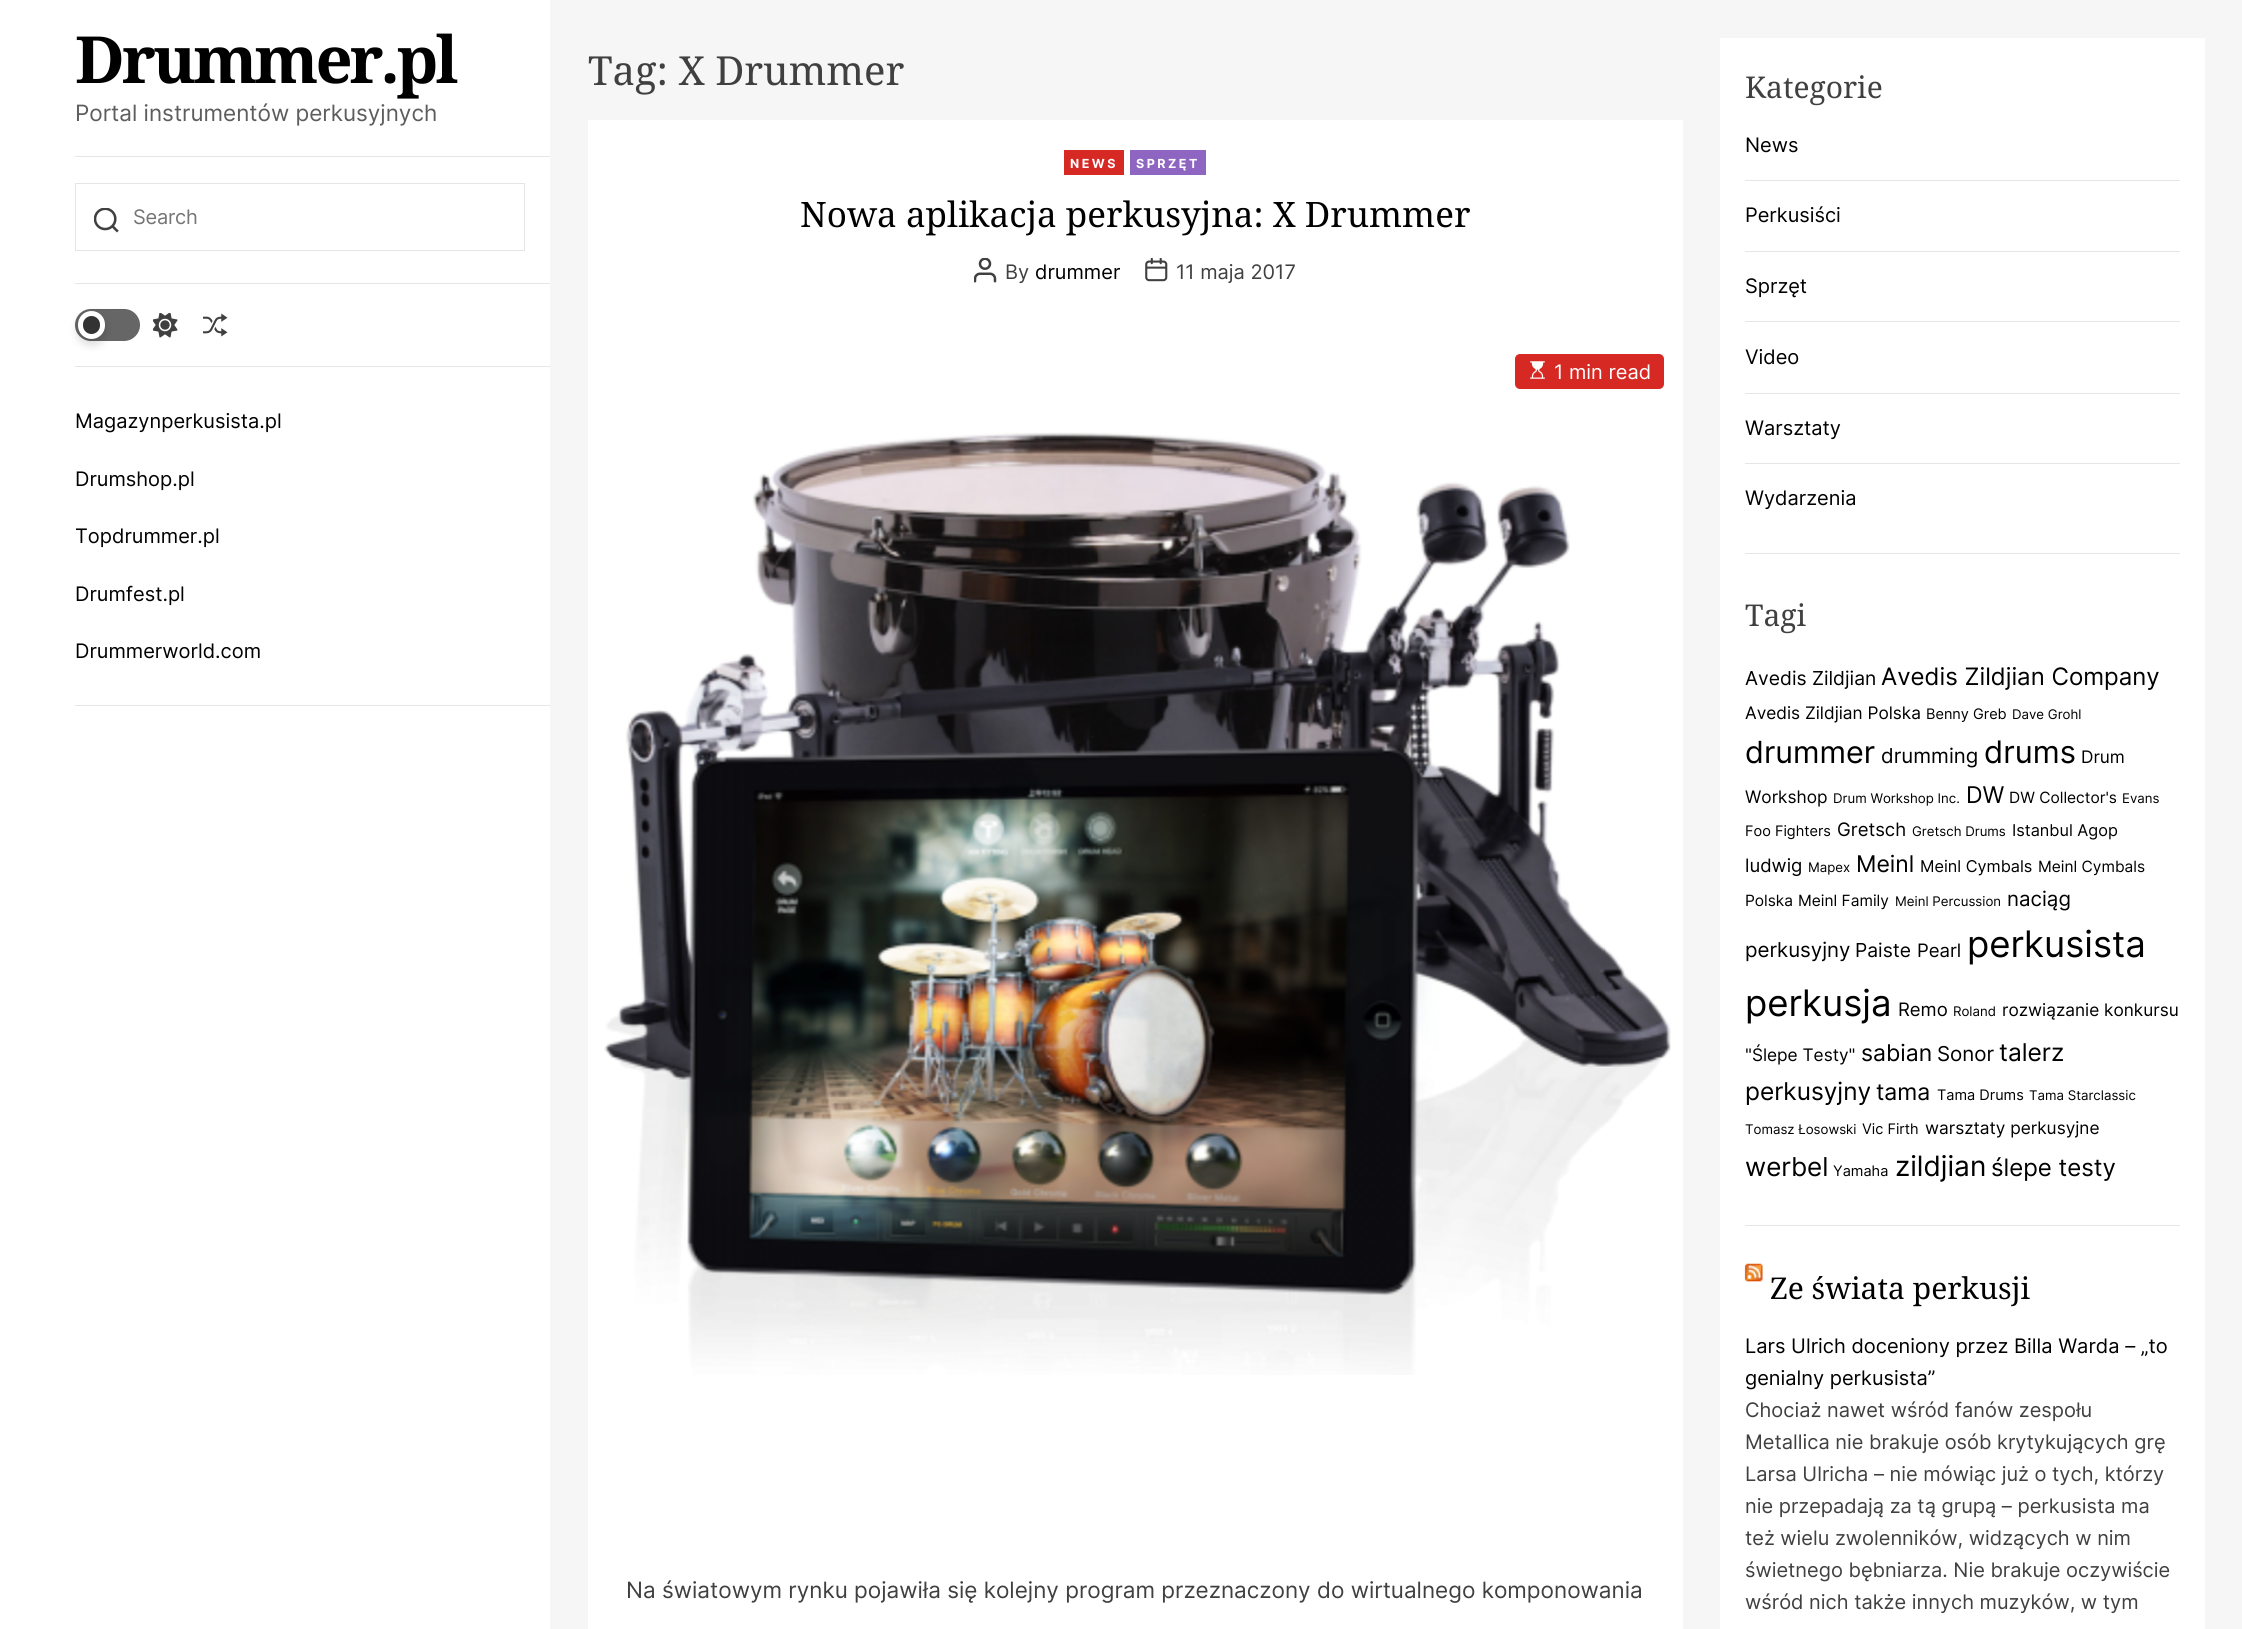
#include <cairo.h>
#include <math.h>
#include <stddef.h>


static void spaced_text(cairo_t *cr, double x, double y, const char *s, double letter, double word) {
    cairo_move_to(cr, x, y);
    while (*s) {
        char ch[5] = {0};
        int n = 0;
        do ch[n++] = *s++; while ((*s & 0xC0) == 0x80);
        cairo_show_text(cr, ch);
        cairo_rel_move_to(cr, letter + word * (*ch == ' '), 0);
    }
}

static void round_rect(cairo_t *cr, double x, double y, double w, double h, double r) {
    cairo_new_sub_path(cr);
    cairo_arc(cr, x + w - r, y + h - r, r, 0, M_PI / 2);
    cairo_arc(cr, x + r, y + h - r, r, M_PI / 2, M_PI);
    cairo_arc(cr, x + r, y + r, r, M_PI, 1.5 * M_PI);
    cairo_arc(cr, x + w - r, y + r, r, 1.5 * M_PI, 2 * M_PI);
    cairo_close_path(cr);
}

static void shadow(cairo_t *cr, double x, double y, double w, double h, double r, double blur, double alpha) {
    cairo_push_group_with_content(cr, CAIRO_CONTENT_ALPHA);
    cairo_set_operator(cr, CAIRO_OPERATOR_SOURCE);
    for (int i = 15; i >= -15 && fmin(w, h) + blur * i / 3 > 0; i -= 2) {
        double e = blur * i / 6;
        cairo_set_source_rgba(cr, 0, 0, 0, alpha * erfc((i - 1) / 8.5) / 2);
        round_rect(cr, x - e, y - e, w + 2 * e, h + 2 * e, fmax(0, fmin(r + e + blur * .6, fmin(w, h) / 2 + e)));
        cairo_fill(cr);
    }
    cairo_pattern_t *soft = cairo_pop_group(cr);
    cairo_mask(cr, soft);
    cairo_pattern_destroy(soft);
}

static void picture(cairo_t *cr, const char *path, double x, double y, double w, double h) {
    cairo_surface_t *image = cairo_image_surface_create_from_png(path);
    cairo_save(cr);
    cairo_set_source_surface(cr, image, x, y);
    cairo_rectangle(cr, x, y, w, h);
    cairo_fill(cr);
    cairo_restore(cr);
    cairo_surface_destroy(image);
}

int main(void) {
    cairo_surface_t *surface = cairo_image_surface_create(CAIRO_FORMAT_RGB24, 2242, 1629);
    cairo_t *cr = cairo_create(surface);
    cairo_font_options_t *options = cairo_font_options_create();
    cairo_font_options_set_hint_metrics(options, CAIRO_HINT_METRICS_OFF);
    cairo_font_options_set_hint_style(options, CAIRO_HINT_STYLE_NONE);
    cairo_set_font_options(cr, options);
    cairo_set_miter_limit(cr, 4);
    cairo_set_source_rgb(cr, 1, 1, 1);
    cairo_paint(cr);
    cairo_set_source_rgb(cr, 0.902, 0.902, 0.902);
    cairo_rectangle(cr, 75, 156, 475, 1);
    cairo_fill(cr);
    cairo_select_font_face(cr, "Noto Serif", CAIRO_FONT_SLANT_NORMAL, CAIRO_FONT_WEIGHT_BOLD);
    cairo_set_font_size(cr, 65);
    cairo_set_source_rgb(cr, 0, 0, 0);
    spaced_text(cr, 75, 83, "Drummer.pl", -3, 0);
    cairo_select_font_face(cr, "Inter", CAIRO_FONT_SLANT_NORMAL, CAIRO_FONT_WEIGHT_NORMAL);
    cairo_set_font_size(cr, 22.5);
    cairo_set_source_rgb(cr, 0.365, 0.365, 0.365);
    cairo_move_to(cr, 75, 121);
    cairo_show_text(cr, "Portal instrumentów perkusyjnych");
    cairo_set_source_rgb(cr, 0.902, 0.902, 0.902);
    cairo_rectangle(cr, 75, 283, 475, 1);
    cairo_fill(cr);
    cairo_rectangle(cr, 75.5, 183.5, 449, 67);
    cairo_set_line_width(cr, 1);
    cairo_stroke(cr);
    picture(cr, "img1.png", 94, 208, 25, 25);
    cairo_set_font_size(cr, 20);
    cairo_set_source_rgb(cr, 0.459, 0.459, 0.459);
    spaced_text(cr, 133, 224, "Search", -0.25, 0);
    cairo_set_source_rgb(cr, 0.902, 0.902, 0.902);
    cairo_rectangle(cr, 75, 366, 475, 1);
    cairo_fill(cr);
    cairo_set_source_rgb(cr, 0.4, 0.4, 0.4);
    round_rect(cr, 75, 309, 65, 32, 16);
    cairo_fill(cr);
    cairo_set_source_rgba(cr, 0, 0, 0, 0.05);
    cairo_new_path(cr);
    cairo_move_to(cr, 91, 310);
    cairo_line_to(cr, 124, 310);
    cairo_curve_to(cr, 133, 310, 140, 317, 140, 325);
    cairo_curve_to(cr, 140, 322, 139, 319, 137, 316);
    cairo_curve_to(cr, 131, 306, 117, 309, 108, 309);
    cairo_curve_to(cr, 98, 309, 84, 306, 78, 316);
    cairo_curve_to(cr, 76, 319, 75, 322, 75, 325);
    cairo_curve_to(cr, 75, 317, 82, 310, 91, 310);
    cairo_close_path(cr);
    cairo_fill(cr);
    cairo_set_source_rgb(cr, 0, 0, 0);
    shadow(cr, 78, 316, 27, 28, 13.5, 5, 0.16);
    cairo_set_source_rgb(cr, 0.2, 0.2, 0.2);
    round_rect(cr, 80.5, 313.5, 22, 23, 11);
    cairo_fill_preserve(cr);
    cairo_set_source_rgb(cr, 1, 1, 1);
    cairo_set_line_width(cr, 5);
    cairo_stroke(cr);
    picture(cr, "img2.png", 153, 313, 25, 25);
    picture(cr, "img3.png", 203, 313, 25, 24);
    cairo_set_source_rgb(cr, 0.902, 0.902, 0.902);
    cairo_rectangle(cr, 75, 705, 475, 1);
    cairo_fill(cr);
    cairo_set_source_rgb(cr, 0, 0, 0);
    cairo_move_to(cr, 75, 428);
    cairo_show_text(cr, "Magazynperkusista.pl");
    cairo_move_to(cr, 75, 486);
    cairo_show_text(cr, "Drumshop.pl");
    cairo_move_to(cr, 75, 543);
    cairo_show_text(cr, "Topdrummer.pl");
    cairo_move_to(cr, 75, 601);
    cairo_show_text(cr, "Drumfest.pl");
    cairo_move_to(cr, 75, 658);
    cairo_show_text(cr, "Drummerworld.com");
    cairo_set_source_rgb(cr, 0.961, 0.961, 0.961);
    cairo_rectangle(cr, 550, 0, 1692, 1629);
    cairo_fill(cr);
    cairo_select_font_face(cr, "Noto Serif", CAIRO_FONT_SLANT_NORMAL, CAIRO_FONT_WEIGHT_NORMAL);
    cairo_set_font_size(cr, 40);
    cairo_set_source_rgb(cr, 0.251, 0.251, 0.251);
    cairo_move_to(cr, 588, 85);
    cairo_show_text(cr, "Tag: X Drummer");
    cairo_set_source_rgb(cr, 1, 1, 1);
    cairo_rectangle(cr, 588, 120, 1095, 1509);
    cairo_fill(cr);
    cairo_set_source_rgb(cr, 0.843, 0.161, 0.141);
    cairo_rectangle(cr, 1064, 150, 60, 25);
    cairo_fill(cr);
    cairo_select_font_face(cr, "Inter", CAIRO_FONT_SLANT_NORMAL, CAIRO_FONT_WEIGHT_BOLD);
    cairo_set_font_size(cr, 12.5);
    cairo_set_source_rgb(cr, 1, 1, 1);
    spaced_text(cr, 1070, 168, "NEWS", 2.5, 0);
    cairo_set_source_rgb(cr, 0.557, 0.396, 0.753);
    cairo_rectangle(cr, 1130, 150, 76, 25);
    cairo_fill(cr);
    cairo_set_source_rgb(cr, 1, 1, 1);
    spaced_text(cr, 1136, 168, "SPRZĘT", 2.5, 0);
    cairo_select_font_face(cr, "Noto Serif", CAIRO_FONT_SLANT_NORMAL, CAIRO_FONT_WEIGHT_NORMAL);
    cairo_set_font_size(cr, 35);
    cairo_set_source_rgb(cr, 0, 0, 0);
    cairo_move_to(cr, 800, 227);
    cairo_show_text(cr, "Nowa aplikacja perkusyjna: X Drummer");
    picture(cr, "img4.png", 974, 258, 23, 25);
    cairo_select_font_face(cr, "Inter", CAIRO_FONT_SLANT_NORMAL, CAIRO_FONT_WEIGHT_NORMAL);
    cairo_set_font_size(cr, 20);
    cairo_set_source_rgb(cr, 0.251, 0.251, 0.251);
    cairo_move_to(cr, 1005, 279);
    cairo_show_text(cr, "By");
    cairo_set_source_rgb(cr, 0, 0, 0);
    cairo_move_to(cr, 1035, 279);
    cairo_show_text(cr, "drummer");
    picture(cr, "img5.png", 1145, 258, 23, 24);
    cairo_set_source_rgb(cr, 0.251, 0.251, 0.251);
    cairo_move_to(cr, 1176, 279);
    cairo_show_text(cr, "11 maja 2017");
    cairo_set_source_rgb(cr, 0.843, 0.161, 0.141);
    round_rect(cr, 1515, 354, 149, 35, 5);
    cairo_fill(cr);
    picture(cr, "img6.png", 1530, 361, 15, 18);
    cairo_set_source_rgb(cr, 1, 1, 1);
    cairo_move_to(cr, 1554, 379);
    cairo_show_text(cr, "1 min read");
    picture(cr, "img7.png", 604, 432, 1067, 943);
    cairo_set_font_size(cr, 22.5);
    cairo_set_source_rgb(cr, 0.251, 0.251, 0.251);
    cairo_move_to(cr, 626, 1598);
    cairo_show_text(cr, "Na światowym rynku pojawiła się kolejny program przeznaczony do wirtualnego komponowania");
    cairo_set_source_rgb(cr, 1, 1, 1);
    cairo_rectangle(cr, 1720, 38, 485, 1591);
    cairo_fill(cr);
    cairo_set_source_rgb(cr, 0.902, 0.902, 0.902);
    cairo_rectangle(cr, 1745, 553, 435, 1);
    cairo_fill(cr);
    cairo_select_font_face(cr, "Noto Serif", CAIRO_FONT_SLANT_NORMAL, CAIRO_FONT_WEIGHT_NORMAL);
    cairo_set_font_size(cr, 30);
    cairo_set_source_rgb(cr, 0.251, 0.251, 0.251);
    cairo_move_to(cr, 1745, 98);
    cairo_show_text(cr, "Kategorie");
    cairo_set_source_rgb(cr, 0.902, 0.902, 0.902);
    cairo_rectangle(cr, 1745, 180, 435, 1);
    cairo_fill(cr);
    cairo_select_font_face(cr, "Inter", CAIRO_FONT_SLANT_NORMAL, CAIRO_FONT_WEIGHT_NORMAL);
    cairo_set_font_size(cr, 20);
    cairo_set_source_rgb(cr, 0, 0, 0);
    cairo_move_to(cr, 1745, 152);
    cairo_show_text(cr, "News");
    cairo_set_source_rgb(cr, 0.902, 0.902, 0.902);
    cairo_rectangle(cr, 1745, 251, 435, 1);
    cairo_fill(cr);
    cairo_set_source_rgb(cr, 0, 0, 0);
    cairo_move_to(cr, 1745, 222);
    cairo_show_text(cr, "Perkusiści");
    cairo_set_source_rgb(cr, 0.902, 0.902, 0.902);
    cairo_rectangle(cr, 1745, 321, 435, 1);
    cairo_fill(cr);
    cairo_set_source_rgb(cr, 0, 0, 0);
    cairo_move_to(cr, 1745, 293);
    cairo_show_text(cr, "Sprzęt");
    cairo_set_source_rgb(cr, 0.902, 0.902, 0.902);
    cairo_rectangle(cr, 1745, 393, 435, 1);
    cairo_fill(cr);
    cairo_set_source_rgb(cr, 0, 0, 0);
    cairo_move_to(cr, 1745, 364);
    cairo_show_text(cr, "Video");
    cairo_set_source_rgb(cr, 0.902, 0.902, 0.902);
    cairo_rectangle(cr, 1745, 463, 435, 1);
    cairo_fill(cr);
    cairo_set_source_rgb(cr, 0, 0, 0);
    cairo_move_to(cr, 1745, 435);
    cairo_show_text(cr, "Warsztaty");
    cairo_move_to(cr, 1745, 505);
    cairo_show_text(cr, "Wydarzenia");
    cairo_set_source_rgb(cr, 0.902, 0.902, 0.902);
    cairo_rectangle(cr, 1745, 1225, 435, 1);
    cairo_fill(cr);
    cairo_select_font_face(cr, "Noto Serif", CAIRO_FONT_SLANT_NORMAL, CAIRO_FONT_WEIGHT_NORMAL);
    cairo_set_font_size(cr, 30);
    cairo_set_source_rgb(cr, 0.251, 0.251, 0.251);
    cairo_move_to(cr, 1745, 626);
    cairo_show_text(cr, "Tagi");
    cairo_select_font_face(cr, "Inter", CAIRO_FONT_SLANT_NORMAL, CAIRO_FONT_WEIGHT_NORMAL);
    cairo_set_font_size(cr, 19.25);
    cairo_set_source_rgb(cr, 0, 0, 0);
    cairo_move_to(cr, 1745, 685);
    cairo_show_text(cr, "Avedis Zildjian");
    cairo_set_font_size(cr, 24);
    cairo_move_to(cr, 1881, 685);
    cairo_show_text(cr, "Avedis Zildjian Company");
    cairo_set_font_size(cr, 17.25);
    cairo_move_to(cr, 1745, 719);
    cairo_show_text(cr, "Avedis Zildjian Polska");
    cairo_set_font_size(cr, 14.5);
    cairo_move_to(cr, 1926, 719);
    cairo_show_text(cr, "Benny Greb");
    cairo_set_font_size(cr, 13.25);
    cairo_move_to(cr, 2012, 719);
    cairo_show_text(cr, "Dave Grohl");
    cairo_set_font_size(cr, 30.5);
    cairo_move_to(cr, 1745, 763);
    cairo_show_text(cr, "drummer");
    cairo_set_font_size(cr, 20.5);
    cairo_move_to(cr, 1881, 763);
    cairo_show_text(cr, "drumming");
    cairo_set_font_size(cr, 31);
    cairo_move_to(cr, 1984, 763);
    cairo_show_text(cr, "drums");
    cairo_set_font_size(cr, 17.25);
    cairo_move_to(cr, 2081, 763);
    cairo_show_text(cr, "Drum");
    cairo_move_to(cr, 1745, 803);
    cairo_show_text(cr, "Workshop");
    cairo_set_font_size(cr, 13.25);
    cairo_move_to(cr, 1833, 803);
    cairo_show_text(cr, "Drum Workshop Inc.");
    cairo_set_font_size(cr, 23);
    cairo_move_to(cr, 1966, 803);
    cairo_show_text(cr, "DW");
    cairo_set_font_size(cr, 15.5);
    cairo_move_to(cr, 2009, 803);
    cairo_show_text(cr, "DW Collector's");
    cairo_set_font_size(cr, 13.25);
    cairo_move_to(cr, 2122, 803);
    cairo_show_text(cr, "Evans");
    cairo_set_font_size(cr, 14.5);
    cairo_move_to(cr, 1745, 836);
    cairo_show_text(cr, "Foo Fighters");
    cairo_set_font_size(cr, 18.5);
    cairo_move_to(cr, 1837, 836);
    cairo_show_text(cr, "Gretsch");
    cairo_set_font_size(cr, 13.25);
    cairo_move_to(cr, 1912, 836);
    cairo_show_text(cr, "Gretsch Drums");
    cairo_set_font_size(cr, 16.25);
    cairo_move_to(cr, 2012, 836);
    cairo_show_text(cr, "Istanbul Agop");
    cairo_set_font_size(cr, 18.5);
    cairo_move_to(cr, 1745, 872);
    cairo_show_text(cr, "ludwig");
    cairo_set_font_size(cr, 13.25);
    cairo_move_to(cr, 1808, 872);
    cairo_show_text(cr, "Mapex");
    cairo_set_font_size(cr, 23);
    cairo_move_to(cr, 1856, 872);
    cairo_show_text(cr, "Meinl");
    cairo_set_font_size(cr, 16.25);
    cairo_move_to(cr, 1920, 872);
    cairo_show_text(cr, "Meinl Cymbals");
    cairo_set_font_size(cr, 15.5);
    cairo_move_to(cr, 2038, 872);
    cairo_show_text(cr, "Meinl Cymbals");
    cairo_move_to(cr, 1745, 906);
    cairo_show_text(cr, "Polska");
    cairo_move_to(cr, 1798, 906);
    cairo_show_text(cr, "Meinl Family");
    cairo_set_font_size(cr, 13.25);
    cairo_move_to(cr, 1895, 906);
    cairo_show_text(cr, "Meinl Percussion");
    cairo_set_font_size(cr, 20.5);
    cairo_move_to(cr, 2007, 906);
    cairo_show_text(cr, "naciąg");
    cairo_move_to(cr, 1745, 957);
    cairo_show_text(cr, "perkusyjny");
    cairo_set_font_size(cr, 19.25);
    cairo_move_to(cr, 1855, 957);
    cairo_show_text(cr, "Paiste");
    cairo_set_font_size(cr, 18.5);
    cairo_move_to(cr, 1917, 957);
    cairo_show_text(cr, "Pearl");
    cairo_set_font_size(cr, 36.5);
    cairo_move_to(cr, 1967, 957);
    cairo_show_text(cr, "perkusista");
    cairo_move_to(cr, 1745, 1016);
    cairo_show_text(cr, "perkusja");
    cairo_set_font_size(cr, 18.5);
    cairo_move_to(cr, 1898, 1016);
    cairo_show_text(cr, "Remo");
    cairo_set_font_size(cr, 13.25);
    cairo_move_to(cr, 1953, 1016);
    cairo_show_text(cr, "Roland");
    cairo_set_font_size(cr, 17.25);
    cairo_move_to(cr, 2002, 1016);
    cairo_show_text(cr, "rozwiązanie konkursu");
    cairo_move_to(cr, 1745, 1061);
    cairo_show_text(cr, "\"Ślepe Testy\"");
    cairo_set_font_size(cr, 23);
    cairo_move_to(cr, 1861, 1061);
    cairo_show_text(cr, "sabian");
    cairo_set_font_size(cr, 20.5);
    cairo_move_to(cr, 1937, 1061);
    cairo_show_text(cr, "Sonor");
    cairo_set_font_size(cr, 24.5);
    cairo_move_to(cr, 1999, 1061);
    cairo_show_text(cr, "talerz");
    cairo_move_to(cr, 1745, 1100);
    cairo_show_text(cr, "perkusyjny");
    cairo_set_font_size(cr, 23);
    cairo_move_to(cr, 1876, 1100);
    cairo_show_text(cr, "tama");
    cairo_set_font_size(cr, 14.5);
    cairo_move_to(cr, 1937, 1100);
    cairo_show_text(cr, "Tama Drums");
    cairo_set_font_size(cr, 13.25);
    cairo_move_to(cr, 2029, 1100);
    cairo_show_text(cr, "Tama Starclassic");
    cairo_move_to(cr, 1745, 1134);
    cairo_show_text(cr, "Tomasz Łosowski");
    cairo_set_font_size(cr, 14.5);
    cairo_move_to(cr, 1862, 1134);
    cairo_show_text(cr, "Vic Firth");
    cairo_set_font_size(cr, 17.25);
    cairo_move_to(cr, 1925, 1134);
    cairo_show_text(cr, "warsztaty perkusyjne");
    cairo_set_font_size(cr, 26);
    cairo_move_to(cr, 1745, 1176);
    cairo_show_text(cr, "werbel");
    cairo_set_font_size(cr, 14.5);
    cairo_move_to(cr, 1833, 1176);
    cairo_show_text(cr, "Yamaha");
    cairo_set_font_size(cr, 28);
    cairo_move_to(cr, 1895, 1176);
    cairo_show_text(cr, "zildjian");
    cairo_set_font_size(cr, 24);
    cairo_move_to(cr, 1991, 1176);
    cairo_show_text(cr, "ślepe testy");
    picture(cr, "img8.png", 1744, 1263, 19, 19);
    cairo_select_font_face(cr, "Noto Serif", CAIRO_FONT_SLANT_NORMAL, CAIRO_FONT_WEIGHT_NORMAL);
    cairo_set_font_size(cr, 30);
    cairo_move_to(cr, 1770, 1299);
    cairo_show_text(cr, "Ze świata perkusji");
    cairo_select_font_face(cr, "Inter", CAIRO_FONT_SLANT_NORMAL, CAIRO_FONT_WEIGHT_NORMAL);
    cairo_set_font_size(cr, 20);
    cairo_move_to(cr, 1745, 1353);
    cairo_show_text(cr, "Lars Ulrich doceniony przez Billa Warda – „to");
    cairo_move_to(cr, 1745, 1385);
    cairo_show_text(cr, "genialny perkusista”");
    cairo_set_source_rgb(cr, 0.251, 0.251, 0.251);
    cairo_move_to(cr, 1745, 1417);
    cairo_show_text(cr, "Chociaż nawet wśród fanów zespołu");
    cairo_move_to(cr, 1745, 1449);
    cairo_show_text(cr, "Metallica nie brakuje osób krytykujących grę");
    cairo_move_to(cr, 1745, 1481);
    cairo_show_text(cr, "Larsa Ulricha – nie mówiąc już o tych, którzy");
    cairo_move_to(cr, 1745, 1513);
    cairo_show_text(cr, "nie przepadają za tą grupą – perkusista ma");
    cairo_move_to(cr, 1745, 1545);
    cairo_show_text(cr, "też wielu zwolenników, widzących w nim");
    cairo_move_to(cr, 1745, 1577);
    cairo_show_text(cr, "świetnego bębniarza. Nie brakuje oczywiście");
    cairo_move_to(cr, 1745, 1609);
    cairo_show_text(cr, "wśród nich także innych muzyków, w tym");
    cairo_surface_write_to_png(surface, "page.png");
    cairo_font_options_destroy(options);
    cairo_destroy(cr);
    cairo_surface_destroy(surface);
    return 0;
}
